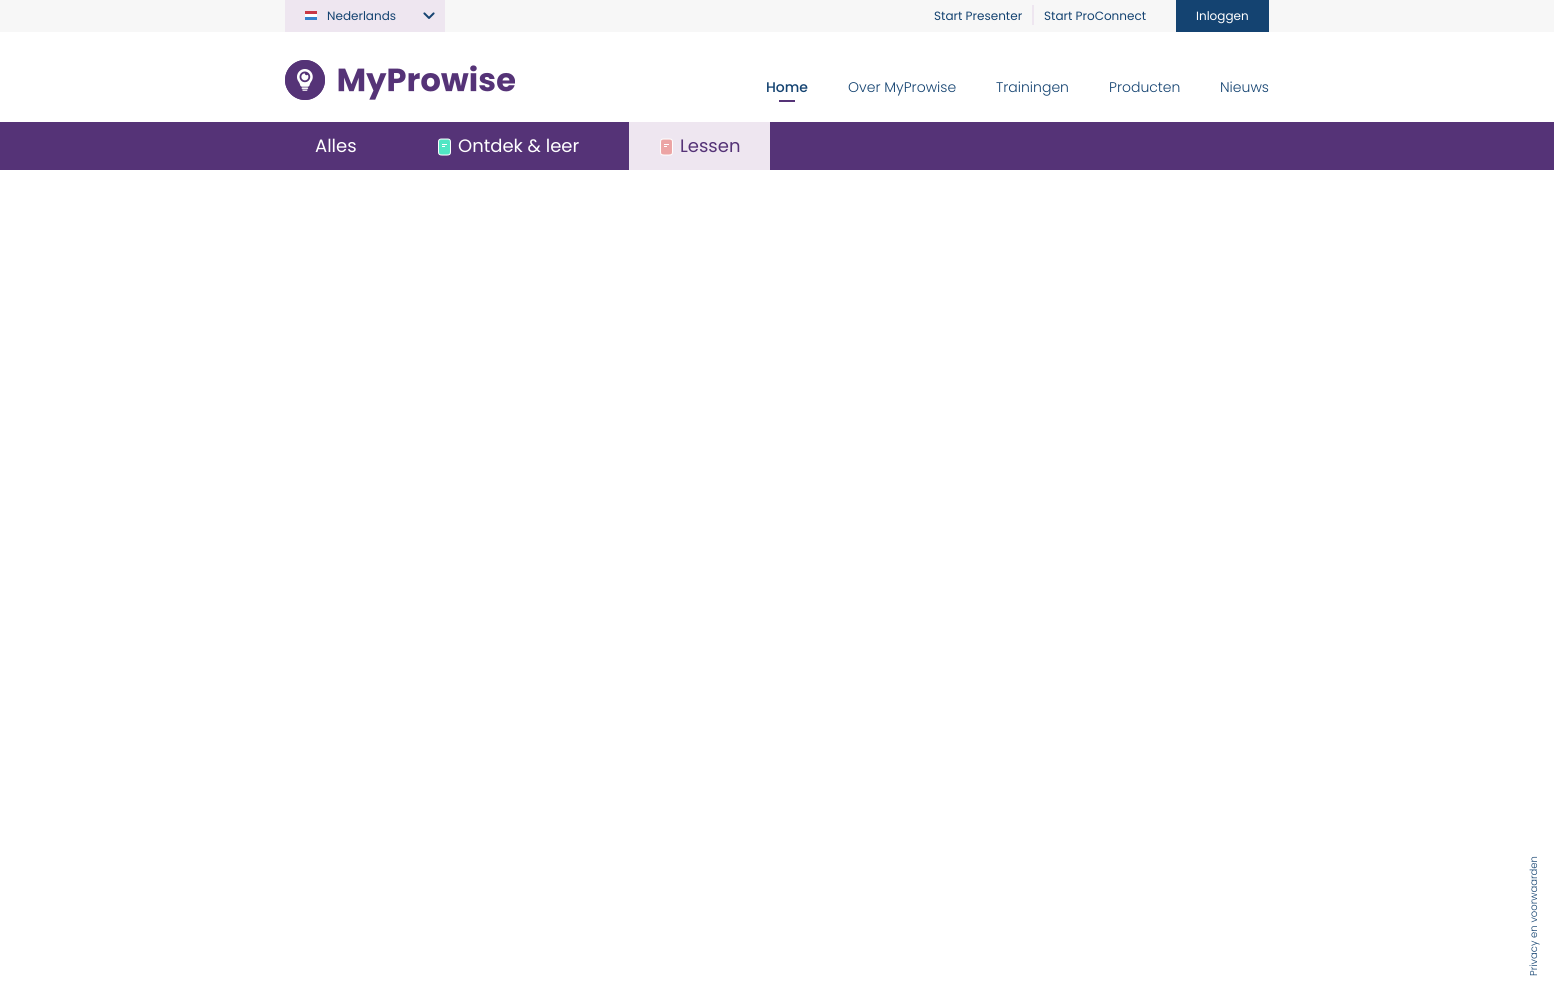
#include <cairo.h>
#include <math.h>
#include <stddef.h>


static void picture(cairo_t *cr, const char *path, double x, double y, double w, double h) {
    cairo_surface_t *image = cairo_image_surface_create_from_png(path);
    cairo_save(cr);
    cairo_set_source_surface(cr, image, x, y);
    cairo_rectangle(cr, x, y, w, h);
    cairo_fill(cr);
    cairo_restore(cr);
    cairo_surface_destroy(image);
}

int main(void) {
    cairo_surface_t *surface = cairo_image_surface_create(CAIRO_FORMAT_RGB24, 1554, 986);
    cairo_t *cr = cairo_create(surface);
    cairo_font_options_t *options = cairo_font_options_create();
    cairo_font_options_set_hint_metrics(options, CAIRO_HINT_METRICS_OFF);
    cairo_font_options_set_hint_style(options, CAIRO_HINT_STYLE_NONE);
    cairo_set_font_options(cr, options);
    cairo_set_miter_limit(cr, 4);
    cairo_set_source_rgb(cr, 1, 1, 1);
    cairo_paint(cr);
    cairo_set_source_rgb(cr, 0.965, 0.965, 0.965);
    cairo_rectangle(cr, 0, 0, 1554, 32);
    cairo_fill(cr);
    cairo_set_source_rgb(cr, 0.933, 0.902, 0.941);
    cairo_rectangle(cr, 285, 0, 160, 32);
    cairo_fill(cr);
    cairo_set_source_rgb(cr, 0.788, 0.22, 0.275);
    cairo_rectangle(cr, 305, 11, 12, 3);
    cairo_fill(cr);
    cairo_set_source_rgb(cr, 1, 1, 1);
    cairo_rectangle(cr, 305, 14, 12, 3);
    cairo_fill(cr);
    cairo_set_source_rgb(cr, 0.208, 0.506, 0.8);
    cairo_rectangle(cr, 305, 17, 12, 3);
    cairo_fill(cr);
    cairo_select_font_face(cr, "Poppins", CAIRO_FONT_SLANT_NORMAL, CAIRO_FONT_WEIGHT_NORMAL);
    cairo_set_font_size(cr, 12);
    cairo_set_source_rgb(cr, 0.082, 0.263, 0.443);
    cairo_move_to(cr, 327, 20);
    cairo_show_text(cr, "Nederlands");
    picture(cr, "img1.png", 423, 12, 12, 7);
    cairo_move_to(cr, 934, 20);
    cairo_show_text(cr, "Start Presenter");
    cairo_set_source_rgb(cr, 0.933, 0.902, 0.941);
    cairo_rectangle(cr, 1032, 5, 2, 20);
    cairo_fill(cr);
    cairo_set_source_rgb(cr, 0.082, 0.263, 0.443);
    cairo_move_to(cr, 1044, 20);
    cairo_show_text(cr, "Start ProConnect");
    cairo_rectangle(cr, 1176, 0, 93, 32);
    cairo_fill(cr);
    cairo_set_source_rgb(cr, 1, 1, 1);
    cairo_move_to(cr, 1196, 20);
    cairo_show_text(cr, "Inloggen");
    picture(cr, "img2.png", 285, 60, 230, 40);
    cairo_select_font_face(cr, "Poppins Medium", CAIRO_FONT_SLANT_NORMAL, CAIRO_FONT_WEIGHT_NORMAL);
    cairo_set_font_size(cr, 14);
    cairo_set_source_rgb(cr, 0.082, 0.263, 0.443);
    cairo_move_to(cr, 766, 92);
    cairo_show_text(cr, "Home");
    cairo_set_source_rgb(cr, 0.333, 0.2, 0.467);
    cairo_rectangle(cr, 779, 100, 16, 2);
    cairo_fill(cr);
    cairo_select_font_face(cr, "Poppins Light", CAIRO_FONT_SLANT_NORMAL, CAIRO_FONT_WEIGHT_NORMAL);
    cairo_set_source_rgb(cr, 0.082, 0.263, 0.443);
    cairo_move_to(cr, 848, 92);
    cairo_show_text(cr, "Over MyProwise");
    cairo_move_to(cr, 996, 92);
    cairo_show_text(cr, "Trainingen");
    cairo_move_to(cr, 1109, 92);
    cairo_show_text(cr, "Producten");
    cairo_move_to(cr, 1220, 92);
    cairo_show_text(cr, "Nieuws");
    cairo_set_source_rgb(cr, 0.333, 0.2, 0.467);
    cairo_rectangle(cr, 0, 122, 1554, 48);
    cairo_fill(cr);
    cairo_select_font_face(cr, "Poppins", CAIRO_FONT_SLANT_NORMAL, CAIRO_FONT_WEIGHT_NORMAL);
    cairo_set_font_size(cr, 18);
    cairo_set_source_rgb(cr, 1, 1, 1);
    cairo_move_to(cr, 315, 152);
    cairo_show_text(cr, "Alles");
    picture(cr, "img3.png", 438, 138, 13, 18);
    cairo_move_to(cr, 458, 152);
    cairo_show_text(cr, "Ontdek & leer");
    cairo_set_source_rgb(cr, 0.933, 0.902, 0.941);
    cairo_rectangle(cr, 629, 122, 141, 48);
    cairo_fill(cr);
    picture(cr, "img4.png", 660, 138, 13, 18);
    cairo_set_source_rgb(cr, 0.333, 0.2, 0.467);
    cairo_move_to(cr, 680, 152);
    cairo_show_text(cr, "Lessen");
    cairo_select_font_face(cr, "Poppins Light", CAIRO_FONT_SLANT_NORMAL, CAIRO_FONT_WEIGHT_NORMAL);
    cairo_set_font_size(cr, 10);
    cairo_set_source_rgb(cr, 0.082, 0.263, 0.443);
    cairo_save(cr);
    cairo_translate(cr, 1537, 976);
    cairo_rotate(cr, -90 * M_PI / 180);
    cairo_move_to(cr, 0, 0);
    cairo_show_text(cr, "Privacy en voorwaarden");
    cairo_restore(cr);
    cairo_surface_write_to_png(surface, "page.png");
    cairo_font_options_destroy(options);
    cairo_destroy(cr);
    cairo_surface_destroy(surface);
    return 0;
}
